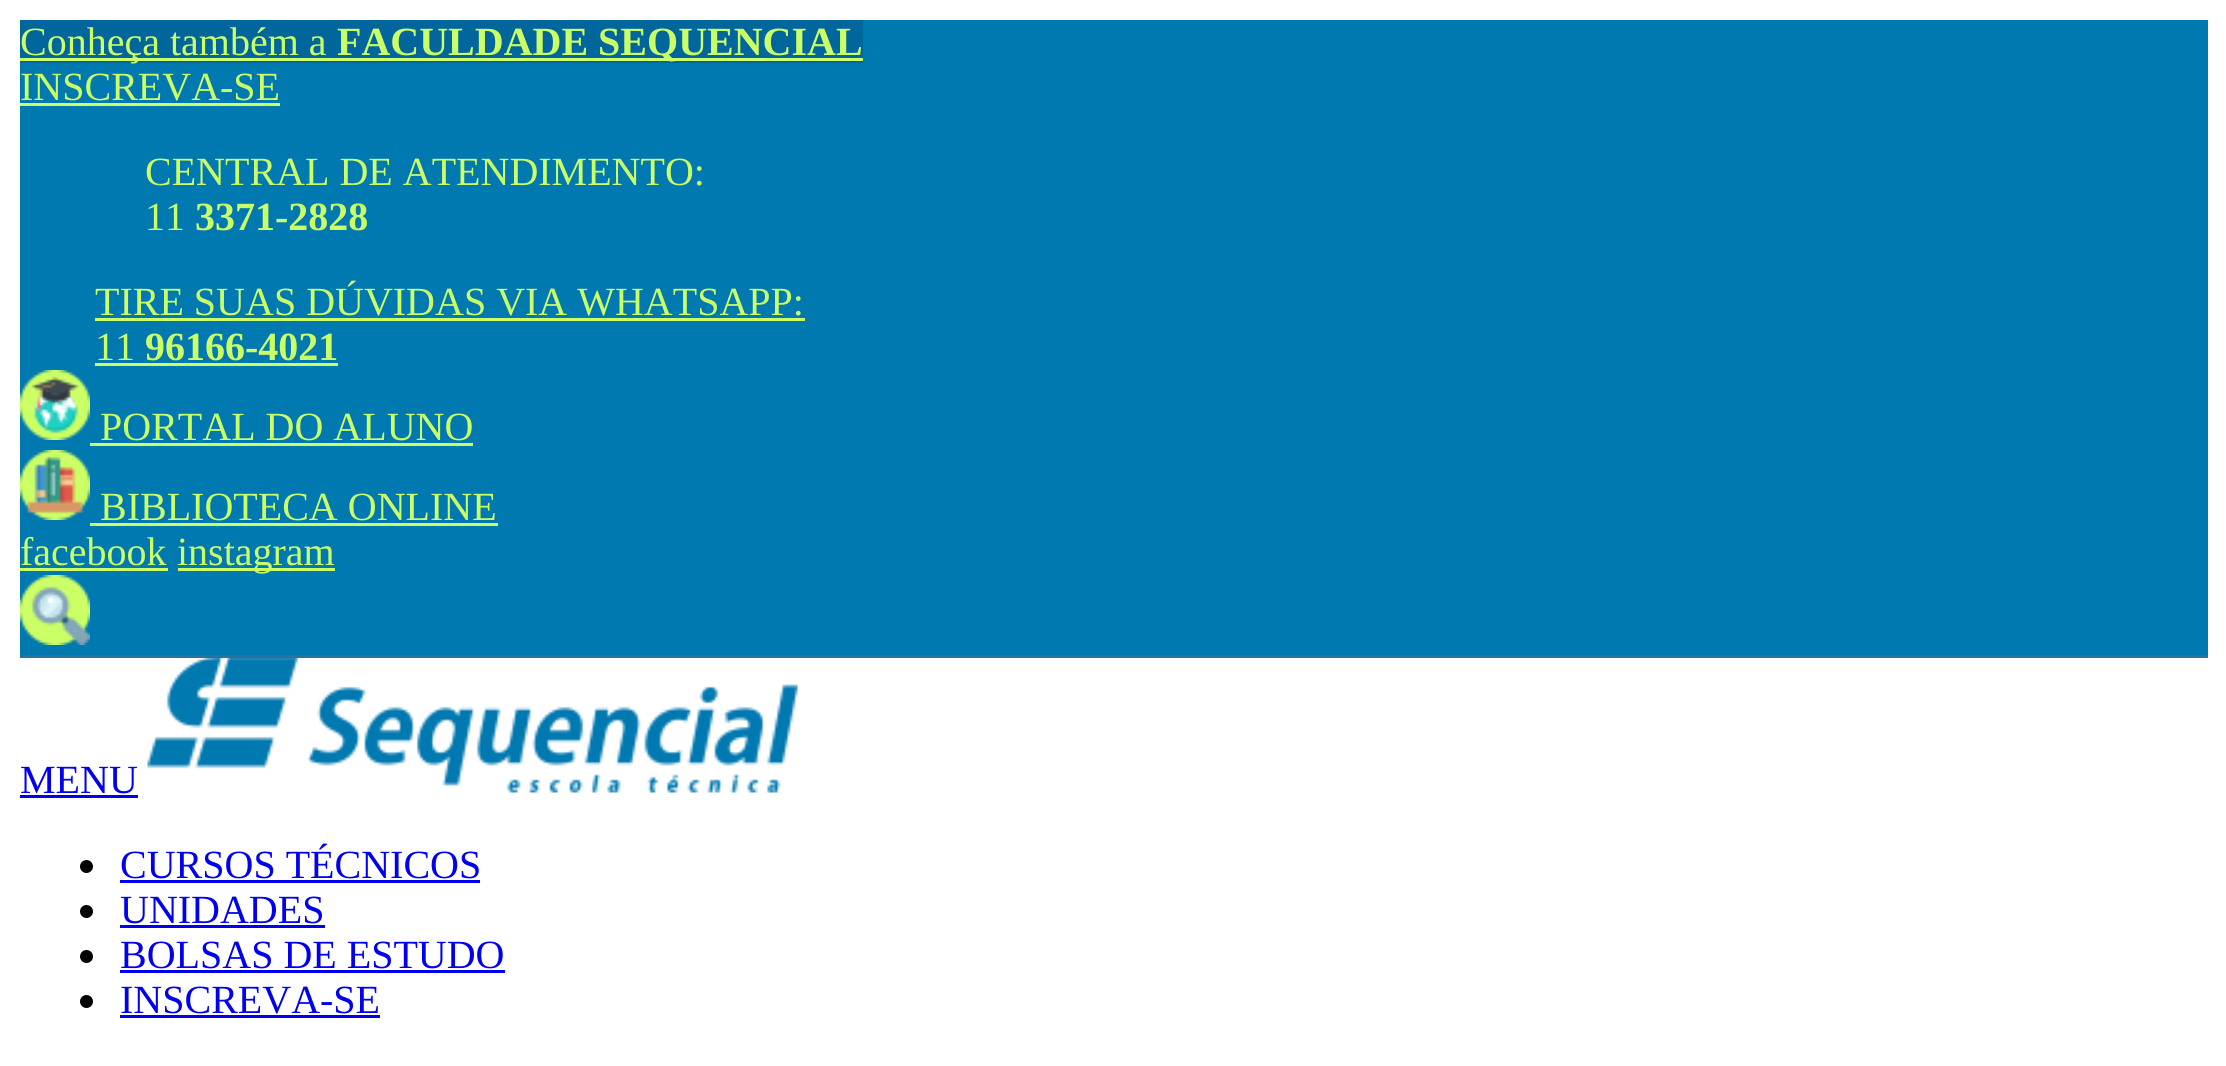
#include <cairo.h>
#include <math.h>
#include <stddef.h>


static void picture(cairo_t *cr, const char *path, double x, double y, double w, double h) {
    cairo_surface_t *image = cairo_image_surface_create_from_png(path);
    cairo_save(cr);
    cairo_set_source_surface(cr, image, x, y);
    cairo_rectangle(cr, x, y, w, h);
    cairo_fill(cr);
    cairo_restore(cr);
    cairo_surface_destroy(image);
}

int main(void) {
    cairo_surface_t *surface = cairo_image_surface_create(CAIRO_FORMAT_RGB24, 2226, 1066);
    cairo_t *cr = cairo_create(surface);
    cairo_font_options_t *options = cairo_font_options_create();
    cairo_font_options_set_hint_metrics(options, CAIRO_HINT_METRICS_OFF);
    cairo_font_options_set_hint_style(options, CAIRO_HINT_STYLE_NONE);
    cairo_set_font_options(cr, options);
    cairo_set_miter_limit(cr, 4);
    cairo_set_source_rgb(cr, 1, 1, 1);
    cairo_paint(cr);
    cairo_set_source_rgb(cr, 0, 0.471, 0.69);
    cairo_rectangle(cr, 20, 20, 2188, 635);
    cairo_fill(cr);
    cairo_set_source_rgb(cr, 0.173, 0.447, 0.62);
    cairo_rectangle(cr, 20, 655, 2188, 3);
    cairo_fill(cr);
    cairo_set_source_rgb(cr, 0.004, 0.4, 0.612);
    cairo_rectangle(cr, 20, 20, 843, 43);
    cairo_fill(cr);
    cairo_set_source_rgb(cr, 0.796, 1, 0.4);
    cairo_rectangle(cr, 20, 58, 843, 3);
    cairo_fill(cr);
    cairo_select_font_face(cr, "Liberation Serif", CAIRO_FONT_SLANT_NORMAL, CAIRO_FONT_WEIGHT_NORMAL);
    cairo_set_font_size(cr, 40);
    cairo_move_to(cr, 20, 55);
    cairo_show_text(cr, "Conheça também a");
    cairo_select_font_face(cr, "Liberation Serif", CAIRO_FONT_SLANT_NORMAL, CAIRO_FONT_WEIGHT_BOLD);
    cairo_move_to(cr, 337, 55);
    cairo_show_text(cr, "FACULDADE SEQUENCIAL");
    cairo_select_font_face(cr, "Liberation Serif", CAIRO_FONT_SLANT_NORMAL, CAIRO_FONT_WEIGHT_NORMAL);
    cairo_move_to(cr, 20, 100);
    cairo_show_text(cr, "INSCREVA-SE");
    cairo_rectangle(cr, 20, 103, 260, 3);
    cairo_fill(cr);
    cairo_move_to(cr, 145, 185);
    cairo_show_text(cr, "CENTRAL DE ATENDIMENTO:");
    cairo_move_to(cr, 145, 230);
    cairo_show_text(cr, "11");
    cairo_select_font_face(cr, "Liberation Serif", CAIRO_FONT_SLANT_NORMAL, CAIRO_FONT_WEIGHT_BOLD);
    cairo_move_to(cr, 195, 230);
    cairo_show_text(cr, "3371-2828");
    cairo_select_font_face(cr, "Liberation Serif", CAIRO_FONT_SLANT_NORMAL, CAIRO_FONT_WEIGHT_NORMAL);
    cairo_move_to(cr, 95, 315);
    cairo_show_text(cr, "TIRE SUAS DÚVIDAS VIA WHATSAPP:");
    cairo_rectangle(cr, 95, 318, 710, 3);
    cairo_fill(cr);
    cairo_move_to(cr, 95, 360);
    cairo_show_text(cr, "11");
    cairo_select_font_face(cr, "Liberation Serif", CAIRO_FONT_SLANT_NORMAL, CAIRO_FONT_WEIGHT_BOLD);
    cairo_move_to(cr, 145, 360);
    cairo_show_text(cr, "96166-4021");
    cairo_rectangle(cr, 95, 363, 243, 3);
    cairo_fill(cr);
    picture(cr, "img1.png", 20, 370, 70, 70);
    cairo_select_font_face(cr, "Liberation Serif", CAIRO_FONT_SLANT_NORMAL, CAIRO_FONT_WEIGHT_NORMAL);
    cairo_move_to(cr, 100, 440);
    cairo_show_text(cr, "PORTAL DO ALUNO");
    cairo_rectangle(cr, 90, 443, 383, 3);
    cairo_fill(cr);
    picture(cr, "img2.png", 20, 450, 70, 70);
    cairo_move_to(cr, 100, 520);
    cairo_show_text(cr, "BIBLIOTECA ONLINE");
    cairo_rectangle(cr, 90, 523, 408, 3);
    cairo_fill(cr);
    cairo_move_to(cr, 20, 565);
    cairo_show_text(cr, "facebook");
    cairo_rectangle(cr, 20, 568, 148, 3);
    cairo_fill(cr);
    cairo_rectangle(cr, 178, 568, 157, 3);
    cairo_fill(cr);
    cairo_move_to(cr, 177, 565);
    cairo_show_text(cr, "instagram");
    picture(cr, "img3.png", 20, 575, 70, 70);
    cairo_set_source_rgb(cr, 0, 0, 0.933);
    cairo_move_to(cr, 20, 793);
    cairo_show_text(cr, "MENU");
    cairo_rectangle(cr, 20, 795, 118, 3);
    cairo_fill(cr);
    picture(cr, "img4.png", 147, 657, 651, 136);
    cairo_set_source_rgb(cr, 0, 0, 0);
    cairo_arc(cr, 86.5, 866.5, 6.5, 0, 2 * M_PI);
    cairo_fill(cr);
    cairo_set_source_rgb(cr, 0, 0, 0.933);
    cairo_move_to(cr, 120, 878);
    cairo_show_text(cr, "CURSOS TÉCNICOS");
    cairo_rectangle(cr, 120, 880, 360, 3);
    cairo_fill(cr);
    cairo_set_source_rgb(cr, 0, 0, 0);
    cairo_arc(cr, 86.5, 911.5, 6.5, 0, 2 * M_PI);
    cairo_fill(cr);
    cairo_set_source_rgb(cr, 0, 0, 0.933);
    cairo_move_to(cr, 120, 923);
    cairo_show_text(cr, "UNIDADES");
    cairo_rectangle(cr, 120, 925, 205, 3);
    cairo_fill(cr);
    cairo_set_source_rgb(cr, 0, 0, 0);
    cairo_arc(cr, 86.5, 956.5, 6.5, 0, 2 * M_PI);
    cairo_fill(cr);
    cairo_set_source_rgb(cr, 0, 0, 0.933);
    cairo_move_to(cr, 120, 968);
    cairo_show_text(cr, "BOLSAS DE ESTUDO");
    cairo_rectangle(cr, 120, 970, 385, 3);
    cairo_fill(cr);
    cairo_set_source_rgb(cr, 0, 0, 0);
    cairo_arc(cr, 86.5, 1001.5, 6.5, 0, 2 * M_PI);
    cairo_fill(cr);
    cairo_set_source_rgb(cr, 0, 0, 0.933);
    cairo_move_to(cr, 120, 1013);
    cairo_show_text(cr, "INSCREVA-SE");
    cairo_rectangle(cr, 120, 1015, 260, 3);
    cairo_fill(cr);
    cairo_surface_write_to_png(surface, "page.png");
    cairo_font_options_destroy(options);
    cairo_destroy(cr);
    cairo_surface_destroy(surface);
    return 0;
}
